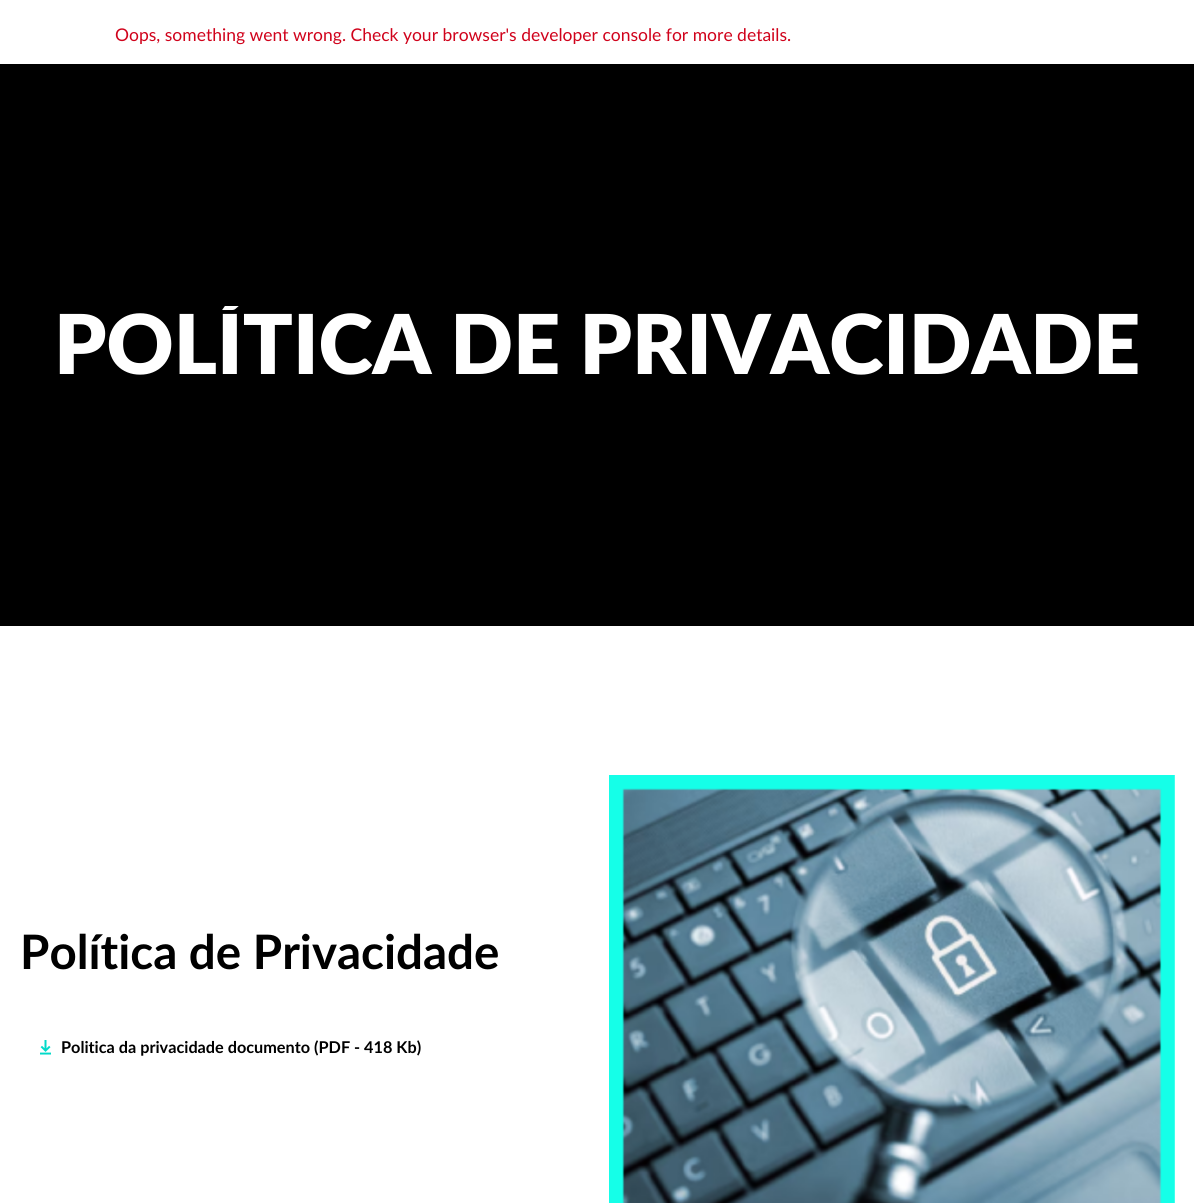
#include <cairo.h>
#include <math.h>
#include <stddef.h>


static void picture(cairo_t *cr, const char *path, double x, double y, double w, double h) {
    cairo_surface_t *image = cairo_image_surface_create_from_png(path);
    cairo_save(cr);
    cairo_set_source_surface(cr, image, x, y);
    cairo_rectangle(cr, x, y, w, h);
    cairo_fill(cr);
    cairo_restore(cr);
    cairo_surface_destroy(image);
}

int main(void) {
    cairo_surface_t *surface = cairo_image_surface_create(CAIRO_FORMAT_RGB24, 1194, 1203);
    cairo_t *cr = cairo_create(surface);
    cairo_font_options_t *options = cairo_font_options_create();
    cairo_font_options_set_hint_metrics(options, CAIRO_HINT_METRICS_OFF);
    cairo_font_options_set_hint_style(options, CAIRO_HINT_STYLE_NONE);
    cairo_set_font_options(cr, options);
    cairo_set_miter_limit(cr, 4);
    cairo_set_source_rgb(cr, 1, 1, 1);
    cairo_paint(cr);
    cairo_select_font_face(cr, "Lato", CAIRO_FONT_SLANT_NORMAL, CAIRO_FONT_WEIGHT_NORMAL);
    cairo_set_font_size(cr, 17.5);
    cairo_set_source_rgb(cr, 0.816, 0.008, 0.106);
    cairo_move_to(cr, 115, 41);
    cairo_show_text(cr, "Oops, something went wrong. Check your browser's developer console for more details.");
    cairo_set_source_rgb(cr, 0, 0, 0);
    cairo_rectangle(cr, 0, 64, 1194, 562);
    cairo_fill(cr);
    cairo_save(cr);
    cairo_rectangle(cr, 20, 306, 1155, 100);
    cairo_clip(cr);
    cairo_select_font_face(cr, "Lato Black", CAIRO_FONT_SLANT_NORMAL, CAIRO_FONT_WEIGHT_NORMAL);
    cairo_set_font_size(cr, 82.5);
    cairo_set_source_rgb(cr, 1, 1, 1);
    cairo_move_to(cr, 54, 374);
    cairo_show_text(cr, "POLÍTICA DE PRIVACIDADE");
    cairo_restore(cr);
    cairo_select_font_face(cr, "Lato", CAIRO_FONT_SLANT_NORMAL, CAIRO_FONT_WEIGHT_BOLD);
    cairo_set_font_size(cr, 47.5);
    cairo_move_to(cr, 20, 969);
    cairo_show_text(cr, "Política de Privacidade");
    picture(cr, "img1.png", 40, 1040, 11, 15);
    cairo_set_font_size(cr, 16.25);
    cairo_move_to(cr, 61, 1053);
    cairo_show_text(cr, "Politica da privacidade documento (PDF - 418 Kb)");
    picture(cr, "img2.png", 609, 775, 566, 428);
    cairo_surface_write_to_png(surface, "page.png");
    cairo_font_options_destroy(options);
    cairo_destroy(cr);
    cairo_surface_destroy(surface);
    return 0;
}
